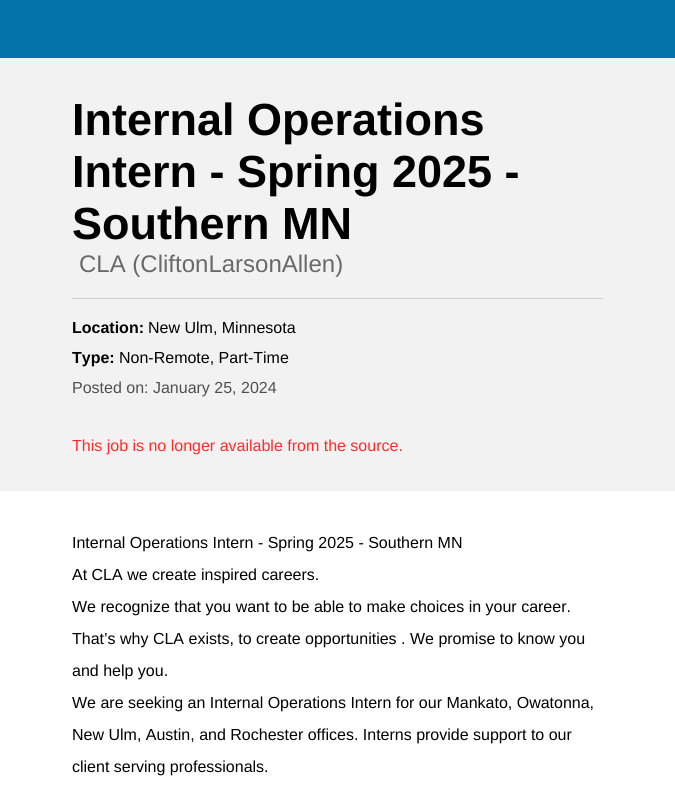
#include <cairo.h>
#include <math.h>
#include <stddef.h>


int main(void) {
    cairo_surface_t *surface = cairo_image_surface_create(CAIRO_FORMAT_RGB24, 675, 794);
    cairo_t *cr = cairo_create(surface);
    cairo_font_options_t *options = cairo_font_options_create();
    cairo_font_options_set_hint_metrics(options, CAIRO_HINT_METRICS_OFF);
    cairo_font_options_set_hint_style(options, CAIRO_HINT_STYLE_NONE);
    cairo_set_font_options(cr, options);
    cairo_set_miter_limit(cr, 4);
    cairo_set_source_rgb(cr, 1, 1, 1);
    cairo_paint(cr);
    cairo_set_source_rgb(cr, 0.012, 0.447, 0.651);
    cairo_rectangle(cr, 0, 0, 675, 58);
    cairo_fill(cr);
    cairo_set_source_rgb(cr, 0.949, 0.949, 0.949);
    cairo_rectangle(cr, 0, 58, 675, 433);
    cairo_fill(cr);
    cairo_select_font_face(cr, "Liberation Sans", CAIRO_FONT_SLANT_NORMAL, CAIRO_FONT_WEIGHT_BOLD);
    cairo_set_font_size(cr, 45);
    cairo_set_source_rgb(cr, 0, 0, 0);
    cairo_move_to(cr, 72, 135);
    cairo_show_text(cr, "Internal Operations");
    cairo_move_to(cr, 72, 187);
    cairo_show_text(cr, "Intern - Spring 2025 -");
    cairo_move_to(cr, 72, 239);
    cairo_show_text(cr, "Southern MN");
    cairo_select_font_face(cr, "Liberation Sans", CAIRO_FONT_SLANT_NORMAL, CAIRO_FONT_WEIGHT_NORMAL);
    cairo_set_font_size(cr, 24);
    cairo_set_source_rgb(cr, 0.412, 0.412, 0.412);
    cairo_move_to(cr, 79, 272);
    cairo_show_text(cr, "CLA (CliftonLarsonAllen)");
    cairo_set_source_rgb(cr, 0.808, 0.808, 0.808);
    cairo_rectangle(cr, 72, 298, 531, 1);
    cairo_fill(cr);
    cairo_select_font_face(cr, "Liberation Sans", CAIRO_FONT_SLANT_NORMAL, CAIRO_FONT_WEIGHT_BOLD);
    cairo_set_font_size(cr, 16);
    cairo_set_source_rgb(cr, 0, 0, 0);
    cairo_move_to(cr, 72, 333);
    cairo_show_text(cr, "Location:");
    cairo_select_font_face(cr, "Liberation Sans", CAIRO_FONT_SLANT_NORMAL, CAIRO_FONT_WEIGHT_NORMAL);
    cairo_move_to(cr, 148, 333);
    cairo_show_text(cr, "New Ulm, Minnesota");
    cairo_select_font_face(cr, "Liberation Sans", CAIRO_FONT_SLANT_NORMAL, CAIRO_FONT_WEIGHT_BOLD);
    cairo_move_to(cr, 72, 363);
    cairo_show_text(cr, "Type:");
    cairo_select_font_face(cr, "Liberation Sans", CAIRO_FONT_SLANT_NORMAL, CAIRO_FONT_WEIGHT_NORMAL);
    cairo_move_to(cr, 119, 363);
    cairo_show_text(cr, "Non-Remote, Part-Time");
    cairo_set_source_rgb(cr, 0.31, 0.31, 0.31);
    cairo_move_to(cr, 72, 393);
    cairo_show_text(cr, "Posted on: January 25, 2024");
    cairo_set_source_rgb(cr, 1, 0.169, 0.169);
    cairo_move_to(cr, 72, 451);
    cairo_show_text(cr, "This job is no longer available from the source.");
    cairo_set_source_rgb(cr, 0, 0, 0);
    cairo_move_to(cr, 72, 548);
    cairo_show_text(cr, "Internal Operations Intern - Spring 2025 - Southern MN");
    cairo_move_to(cr, 72, 580);
    cairo_show_text(cr, "At CLA we create inspired careers.");
    cairo_move_to(cr, 72, 612);
    cairo_show_text(cr, "We recognize that you want to be able to make choices in your career.");
    cairo_move_to(cr, 72, 644);
    cairo_show_text(cr, "That’s why CLA exists, to create opportunities . We promise to know you");
    cairo_move_to(cr, 72, 676);
    cairo_show_text(cr, "and help you.");
    cairo_move_to(cr, 72, 708);
    cairo_show_text(cr, "We are seeking an Internal Operations Intern for our Mankato, Owatonna,");
    cairo_move_to(cr, 72, 740);
    cairo_show_text(cr, "New Ulm, Austin, and Rochester offices. Interns provide support to our");
    cairo_move_to(cr, 72, 772);
    cairo_show_text(cr, "client serving professionals.");
    cairo_surface_write_to_png(surface, "page.png");
    cairo_font_options_destroy(options);
    cairo_destroy(cr);
    cairo_surface_destroy(surface);
    return 0;
}
